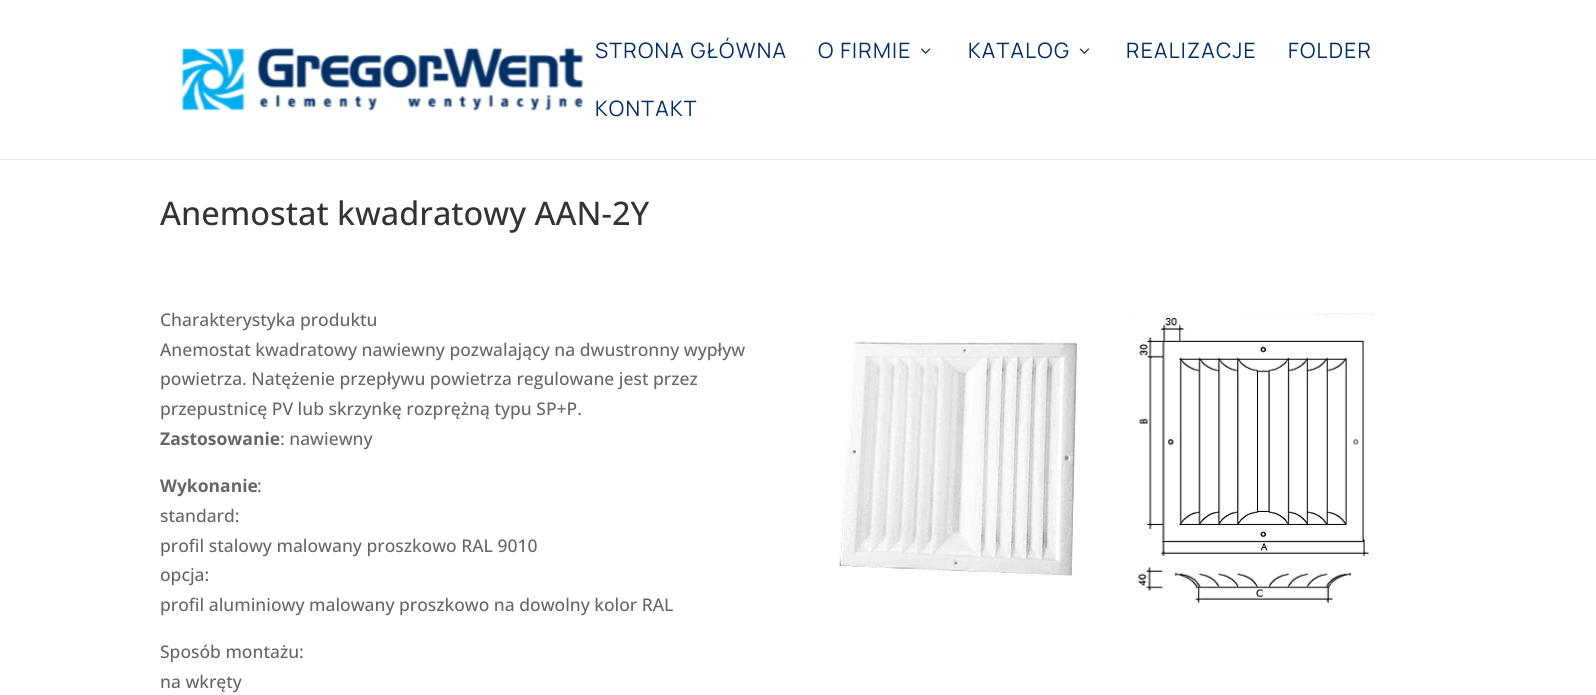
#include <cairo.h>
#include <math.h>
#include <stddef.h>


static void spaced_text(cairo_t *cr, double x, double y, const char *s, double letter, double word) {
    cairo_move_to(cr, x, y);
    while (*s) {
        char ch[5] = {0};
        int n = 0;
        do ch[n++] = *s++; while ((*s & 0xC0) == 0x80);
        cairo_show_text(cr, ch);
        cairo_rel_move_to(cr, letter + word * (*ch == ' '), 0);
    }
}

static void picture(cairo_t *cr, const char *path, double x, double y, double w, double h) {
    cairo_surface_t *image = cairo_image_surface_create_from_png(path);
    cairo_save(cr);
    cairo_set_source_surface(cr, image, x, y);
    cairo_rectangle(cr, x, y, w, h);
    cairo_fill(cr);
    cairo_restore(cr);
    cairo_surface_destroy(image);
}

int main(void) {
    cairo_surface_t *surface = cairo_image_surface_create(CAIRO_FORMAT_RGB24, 1596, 695);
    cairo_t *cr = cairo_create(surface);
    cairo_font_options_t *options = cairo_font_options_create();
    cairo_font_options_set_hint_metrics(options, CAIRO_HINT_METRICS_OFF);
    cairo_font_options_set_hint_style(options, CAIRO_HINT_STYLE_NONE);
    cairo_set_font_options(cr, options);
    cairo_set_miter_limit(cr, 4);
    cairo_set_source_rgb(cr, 1, 1, 1);
    cairo_paint(cr);
    cairo_set_source_rgb(cr, 0.902, 0.902, 0.902);
    cairo_rectangle(cr, 0, 159, 1596, 1);
    cairo_fill(cr);
    picture(cr, "img1.png", 182, 47, 402, 64);
    cairo_select_font_face(cr, "Manrope ExtraLight", CAIRO_FONT_SLANT_NORMAL, CAIRO_FONT_WEIGHT_NORMAL);
    cairo_set_font_size(cr, 21.25);
    cairo_set_source_rgb(cr, 0.004, 0.184, 0.4);
    spaced_text(cr, 595, 58, "STRONA GŁÓWNA", 1.25, 0);
    spaced_text(cr, 818, 58, "O FIRMIE", 1.25, 0);
    picture(cr, "img2.png", 921, 48, 10, 6);
    spaced_text(cr, 968, 58, "KATALOG", 1.25, 0);
    picture(cr, "img3.png", 1079, 48, 10, 6);
    spaced_text(cr, 1126, 58, "REALIZACJE", 1.25, 0);
    spaced_text(cr, 1288, 58, "FOLDER", 1.25, 0);
    spaced_text(cr, 595, 116, "KONTAKT", 1.25, 0);
    cairo_select_font_face(cr, "Open Sans Medium", CAIRO_FONT_SLANT_NORMAL, CAIRO_FONT_WEIGHT_NORMAL);
    cairo_set_font_size(cr, 32.5);
    cairo_set_source_rgb(cr, 0.2, 0.2, 0.2);
    cairo_move_to(cr, 160, 225);
    cairo_show_text(cr, "Anemostat kwadratowy AAN-2Y");
    cairo_set_font_size(cr, 17.5);
    cairo_set_source_rgb(cr, 0.4, 0.4, 0.4);
    cairo_move_to(cr, 160, 326);
    cairo_show_text(cr, "Charakterystyka produktu");
    cairo_move_to(cr, 160, 356);
    cairo_show_text(cr, "Anemostat kwadratowy nawiewny pozwalający na dwustronny wypływ");
    cairo_move_to(cr, 160, 385);
    cairo_show_text(cr, "powietrza. Natężenie przepływu powietrza regulowane jest przez");
    cairo_move_to(cr, 160, 415);
    cairo_show_text(cr, "przepustnicę PV lub skrzynkę rozprężną typu SP+P.");
    cairo_select_font_face(cr, "Open Sans", CAIRO_FONT_SLANT_NORMAL, CAIRO_FONT_WEIGHT_BOLD);
    cairo_move_to(cr, 160, 445);
    cairo_show_text(cr, "Zastosowanie");
    cairo_select_font_face(cr, "Open Sans Medium", CAIRO_FONT_SLANT_NORMAL, CAIRO_FONT_WEIGHT_NORMAL);
    cairo_move_to(cr, 280, 445);
    cairo_show_text(cr, ": nawiewny");
    cairo_select_font_face(cr, "Open Sans", CAIRO_FONT_SLANT_NORMAL, CAIRO_FONT_WEIGHT_BOLD);
    cairo_move_to(cr, 160, 492);
    cairo_show_text(cr, "Wykonanie");
    cairo_select_font_face(cr, "Open Sans Medium", CAIRO_FONT_SLANT_NORMAL, CAIRO_FONT_WEIGHT_NORMAL);
    cairo_move_to(cr, 257, 492);
    cairo_show_text(cr, ":");
    cairo_move_to(cr, 160, 522);
    cairo_show_text(cr, "standard:");
    cairo_move_to(cr, 160, 552);
    cairo_show_text(cr, "profil stalowy malowany proszkowo RAL 9010");
    cairo_move_to(cr, 160, 581);
    cairo_show_text(cr, "opcja:");
    cairo_move_to(cr, 160, 611);
    cairo_show_text(cr, "profil aluminiowy malowany proszkowo na dowolny kolor RAL");
    cairo_move_to(cr, 160, 658);
    cairo_show_text(cr, "Sposób montażu:");
    cairo_move_to(cr, 160, 688);
    cairo_show_text(cr, "na wkręty");
    picture(cr, "img4.png", 838, 313, 537, 294);
    cairo_surface_write_to_png(surface, "page.png");
    cairo_font_options_destroy(options);
    cairo_destroy(cr);
    cairo_surface_destroy(surface);
    return 0;
}
